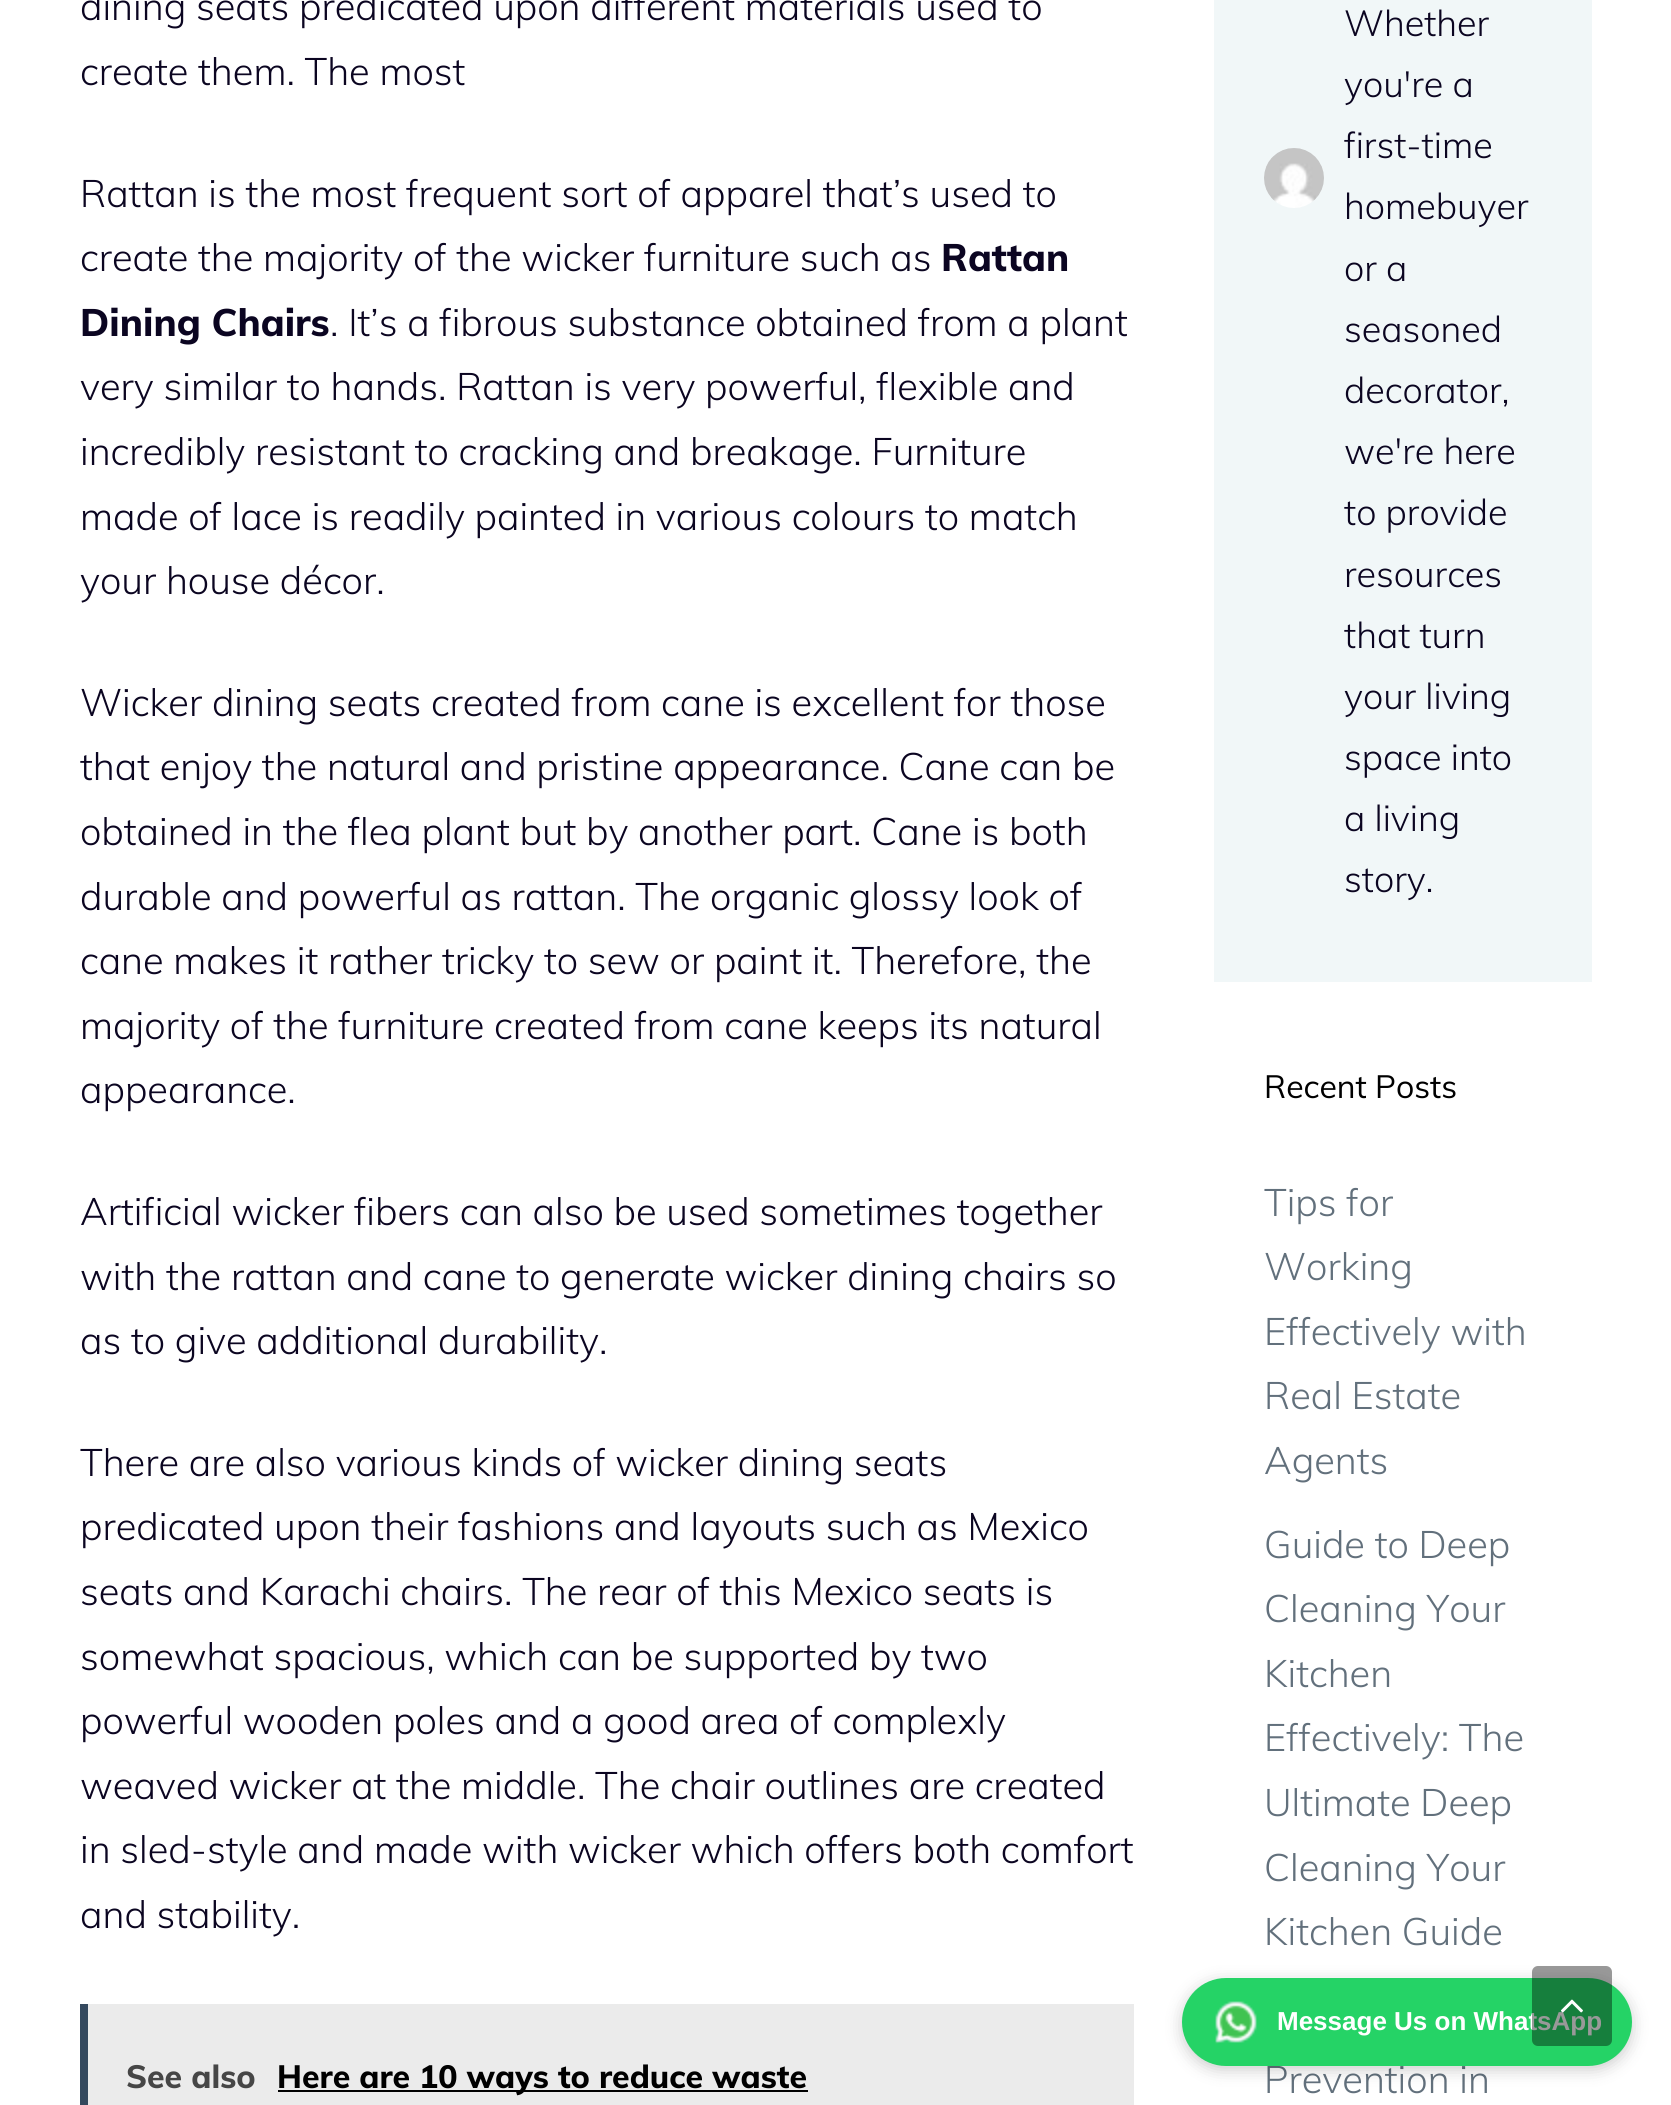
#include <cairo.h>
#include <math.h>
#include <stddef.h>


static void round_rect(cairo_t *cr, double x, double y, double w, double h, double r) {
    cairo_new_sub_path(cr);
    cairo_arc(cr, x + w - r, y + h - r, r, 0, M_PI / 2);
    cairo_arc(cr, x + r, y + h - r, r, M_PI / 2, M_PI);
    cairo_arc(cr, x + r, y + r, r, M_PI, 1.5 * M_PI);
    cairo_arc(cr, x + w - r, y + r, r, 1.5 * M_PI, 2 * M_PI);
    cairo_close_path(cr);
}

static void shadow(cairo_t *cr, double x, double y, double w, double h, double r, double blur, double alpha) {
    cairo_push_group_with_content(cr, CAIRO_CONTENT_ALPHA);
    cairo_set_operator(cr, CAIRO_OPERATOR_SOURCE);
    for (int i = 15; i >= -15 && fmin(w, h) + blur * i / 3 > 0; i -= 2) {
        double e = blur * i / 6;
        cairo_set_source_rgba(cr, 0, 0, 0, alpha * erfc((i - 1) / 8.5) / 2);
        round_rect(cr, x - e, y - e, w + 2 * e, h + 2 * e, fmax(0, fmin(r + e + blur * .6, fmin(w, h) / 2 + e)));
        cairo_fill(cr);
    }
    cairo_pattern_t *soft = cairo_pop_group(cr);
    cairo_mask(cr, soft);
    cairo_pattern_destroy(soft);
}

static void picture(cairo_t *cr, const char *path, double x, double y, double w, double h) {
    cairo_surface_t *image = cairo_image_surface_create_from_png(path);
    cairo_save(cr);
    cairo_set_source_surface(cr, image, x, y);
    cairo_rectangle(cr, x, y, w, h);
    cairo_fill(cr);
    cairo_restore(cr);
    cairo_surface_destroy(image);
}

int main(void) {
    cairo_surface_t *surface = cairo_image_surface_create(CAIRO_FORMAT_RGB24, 1671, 2105);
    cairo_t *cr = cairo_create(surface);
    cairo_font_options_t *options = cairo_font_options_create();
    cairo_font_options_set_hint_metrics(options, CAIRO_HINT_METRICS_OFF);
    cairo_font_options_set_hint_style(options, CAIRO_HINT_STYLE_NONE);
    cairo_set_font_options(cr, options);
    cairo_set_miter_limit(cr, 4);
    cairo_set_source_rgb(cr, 1, 1, 1);
    cairo_paint(cr);
    cairo_select_font_face(cr, "Muli Light", CAIRO_FONT_SLANT_NORMAL, CAIRO_FONT_WEIGHT_NORMAL);
    cairo_set_font_size(cr, 38);
    cairo_set_source_rgb(cr, 0.043, 0.02, 0.129);
    cairo_move_to(cr, 80, 20);
    cairo_show_text(cr, "dining seats predicated upon different materials used to");
    cairo_move_to(cr, 80, 85);
    cairo_show_text(cr, "create them. The most");
    cairo_move_to(cr, 80, 207);
    cairo_show_text(cr, "Rattan is the most frequent sort of apparel that’s used to");
    cairo_move_to(cr, 80, 271);
    cairo_show_text(cr, "create the majority of the wicker furniture such as");
    cairo_select_font_face(cr, "Muli ExtraBold", CAIRO_FONT_SLANT_NORMAL, CAIRO_FONT_WEIGHT_NORMAL);
    cairo_move_to(cr, 941, 271);
    cairo_show_text(cr, "Rattan");
    cairo_move_to(cr, 80, 336);
    cairo_show_text(cr, "Dining Chairs");
    cairo_select_font_face(cr, "Muli Light", CAIRO_FONT_SLANT_NORMAL, CAIRO_FONT_WEIGHT_NORMAL);
    cairo_move_to(cr, 330, 336);
    cairo_show_text(cr, ". It’s a fibrous substance obtained from a plant");
    cairo_move_to(cr, 80, 400);
    cairo_show_text(cr, "very similar to hands. Rattan is very powerful, flexible and");
    cairo_move_to(cr, 80, 465);
    cairo_show_text(cr, "incredibly resistant to cracking and breakage. Furniture");
    cairo_move_to(cr, 80, 530);
    cairo_show_text(cr, "made of lace is readily painted in various colours to match");
    cairo_move_to(cr, 80, 594);
    cairo_show_text(cr, "your house décor.");
    cairo_move_to(cr, 80, 716);
    cairo_show_text(cr, "Wicker dining seats created from cane is excellent for those");
    cairo_move_to(cr, 80, 780);
    cairo_show_text(cr, "that enjoy the natural and pristine appearance. Cane can be");
    cairo_move_to(cr, 80, 845);
    cairo_show_text(cr, "obtained in the flea plant but by another part. Cane is both");
    cairo_move_to(cr, 80, 910);
    cairo_show_text(cr, "durable and powerful as rattan. The organic glossy look of");
    cairo_move_to(cr, 80, 974);
    cairo_show_text(cr, "cane makes it rather tricky to sew or paint it. Therefore, the");
    cairo_move_to(cr, 80, 1039);
    cairo_show_text(cr, "majority of the furniture created from cane keeps its natural");
    cairo_move_to(cr, 80, 1103);
    cairo_show_text(cr, "appearance.");
    cairo_move_to(cr, 80, 1225);
    cairo_show_text(cr, "Artificial wicker fibers can also be used sometimes together");
    cairo_move_to(cr, 80, 1290);
    cairo_show_text(cr, "with the rattan and cane to generate wicker dining chairs so");
    cairo_move_to(cr, 80, 1354);
    cairo_show_text(cr, "as to give additional durability.");
    cairo_move_to(cr, 80, 1476);
    cairo_show_text(cr, "There are also various kinds of wicker dining seats");
    cairo_move_to(cr, 80, 1540);
    cairo_show_text(cr, "predicated upon their fashions and layouts such as Mexico");
    cairo_move_to(cr, 80, 1605);
    cairo_show_text(cr, "seats and Karachi chairs. The rear of this Mexico seats is");
    cairo_move_to(cr, 80, 1670);
    cairo_show_text(cr, "somewhat spacious, which can be supported by two");
    cairo_move_to(cr, 80, 1734);
    cairo_show_text(cr, "powerful wooden poles and a good area of complexly");
    cairo_move_to(cr, 80, 1799);
    cairo_show_text(cr, "weaved wicker at the middle. The chair outlines are created");
    cairo_move_to(cr, 80, 1863);
    cairo_show_text(cr, "in sled-style and made with wicker which offers both comfort");
    cairo_move_to(cr, 80, 1928);
    cairo_show_text(cr, "and stability.");
    cairo_set_source_rgb(cr, 0.918, 0.918, 0.918);
    cairo_rectangle(cr, 88, 2004, 1046, 101);
    cairo_fill(cr);
    cairo_set_source_rgb(cr, 0.204, 0.286, 0.369);
    cairo_rectangle(cr, 80, 2004, 8, 101);
    cairo_fill(cr);
    cairo_select_font_face(cr, "Muli ExtraBold", CAIRO_FONT_SLANT_NORMAL, CAIRO_FONT_WEIGHT_NORMAL);
    cairo_set_font_size(cr, 32);
    cairo_set_source_rgb(cr, 0.275, 0.275, 0.275);
    cairo_move_to(cr, 126, 2088);
    cairo_show_text(cr, "See also");
    cairo_set_source_rgb(cr, 0, 0, 0);
    cairo_rectangle(cr, 278, 2090, 530, 2);
    cairo_fill(cr);
    cairo_move_to(cr, 277, 2088);
    cairo_show_text(cr, "Here are 10 ways to reduce waste");
    cairo_set_source_rgb(cr, 0.945, 0.965, 0.969);
    cairo_rectangle(cr, 1214, 0, 378, 982);
    cairo_fill(cr);
    picture(cr, "img1.png", 1264, 148, 60, 60);
    cairo_select_font_face(cr, "Muli Light", CAIRO_FONT_SLANT_NORMAL, CAIRO_FONT_WEIGHT_NORMAL);
    cairo_set_font_size(cr, 36);
    cairo_set_source_rgb(cr, 0.043, 0.02, 0.129);
    cairo_move_to(cr, 1344, 36);
    cairo_show_text(cr, "Whether");
    cairo_move_to(cr, 1344, 97);
    cairo_show_text(cr, "you're a");
    cairo_move_to(cr, 1344, 158);
    cairo_show_text(cr, "first-time");
    cairo_move_to(cr, 1344, 219);
    cairo_show_text(cr, "homebuyer");
    cairo_move_to(cr, 1344, 281);
    cairo_show_text(cr, "or a");
    cairo_move_to(cr, 1344, 342);
    cairo_show_text(cr, "seasoned");
    cairo_move_to(cr, 1344, 403);
    cairo_show_text(cr, "decorator,");
    cairo_move_to(cr, 1344, 464);
    cairo_show_text(cr, "we're here");
    cairo_move_to(cr, 1344, 525);
    cairo_show_text(cr, "to provide");
    cairo_move_to(cr, 1344, 587);
    cairo_show_text(cr, "resources");
    cairo_move_to(cr, 1344, 648);
    cairo_show_text(cr, "that turn");
    cairo_move_to(cr, 1344, 709);
    cairo_show_text(cr, "your living");
    cairo_move_to(cr, 1344, 770);
    cairo_show_text(cr, "space into");
    cairo_move_to(cr, 1344, 831);
    cairo_show_text(cr, "a living");
    cairo_move_to(cr, 1344, 892);
    cairo_show_text(cr, "story.");
    cairo_select_font_face(cr, "Muli", CAIRO_FONT_SLANT_NORMAL, CAIRO_FONT_WEIGHT_NORMAL);
    cairo_set_font_size(cr, 32);
    cairo_set_source_rgb(cr, 0, 0, 0);
    cairo_move_to(cr, 1264, 1098);
    cairo_show_text(cr, "Recent Posts");
    cairo_select_font_face(cr, "Muli Light", CAIRO_FONT_SLANT_NORMAL, CAIRO_FONT_WEIGHT_NORMAL);
    cairo_set_font_size(cr, 38);
    cairo_set_source_rgb(cr, 0.384, 0.439, 0.486);
    cairo_move_to(cr, 1264, 1216);
    cairo_show_text(cr, "Tips for");
    cairo_move_to(cr, 1264, 1280);
    cairo_show_text(cr, "Working");
    cairo_move_to(cr, 1264, 1345);
    cairo_show_text(cr, "Effectively with");
    cairo_move_to(cr, 1264, 1409);
    cairo_show_text(cr, "Real Estate");
    cairo_move_to(cr, 1264, 1474);
    cairo_show_text(cr, "Agents");
    cairo_move_to(cr, 1264, 1558);
    cairo_show_text(cr, "Guide to Deep");
    cairo_move_to(cr, 1264, 1622);
    cairo_show_text(cr, "Cleaning Your");
    cairo_move_to(cr, 1264, 1687);
    cairo_show_text(cr, "Kitchen");
    cairo_move_to(cr, 1264, 1751);
    cairo_show_text(cr, "Effectively: The");
    cairo_move_to(cr, 1264, 1816);
    cairo_show_text(cr, "Ultimate Deep");
    cairo_move_to(cr, 1264, 1881);
    cairo_show_text(cr, "Cleaning Your");
    cairo_move_to(cr, 1264, 1945);
    cairo_show_text(cr, "Kitchen Guide");
    cairo_move_to(cr, 1264, 2093);
    cairo_show_text(cr, "Prevention in");
    cairo_set_source_rgb(cr, 0, 0, 0);
    shadow(cr, 1182, 1982, 450, 88, 44, 8, 0.2);
    cairo_set_source_rgb(cr, 0.145, 0.827, 0.4);
    round_rect(cr, 1182, 1978, 450, 88, 44);
    cairo_fill(cr);
    cairo_select_font_face(cr, "Liberation Sans", CAIRO_FONT_SLANT_NORMAL, CAIRO_FONT_WEIGHT_BOLD);
    cairo_set_font_size(cr, 26);
    cairo_set_source_rgb(cr, 1, 1, 1);
    cairo_move_to(cr, 1277, 2030);
    cairo_show_text(cr, "Message Us on WhatsApp");
    cairo_set_source_rgba(cr, 0, 0, 0, 0.4);
    round_rect(cr, 1532, 1966, 80, 80, 6);
    cairo_fill(cr);
    picture(cr, "img2.png", 1561, 1999, 22, 14);
    picture(cr, "img3.png", 1215, 2001, 42, 43);
    cairo_surface_write_to_png(surface, "page.png");
    cairo_font_options_destroy(options);
    cairo_destroy(cr);
    cairo_surface_destroy(surface);
    return 0;
}
